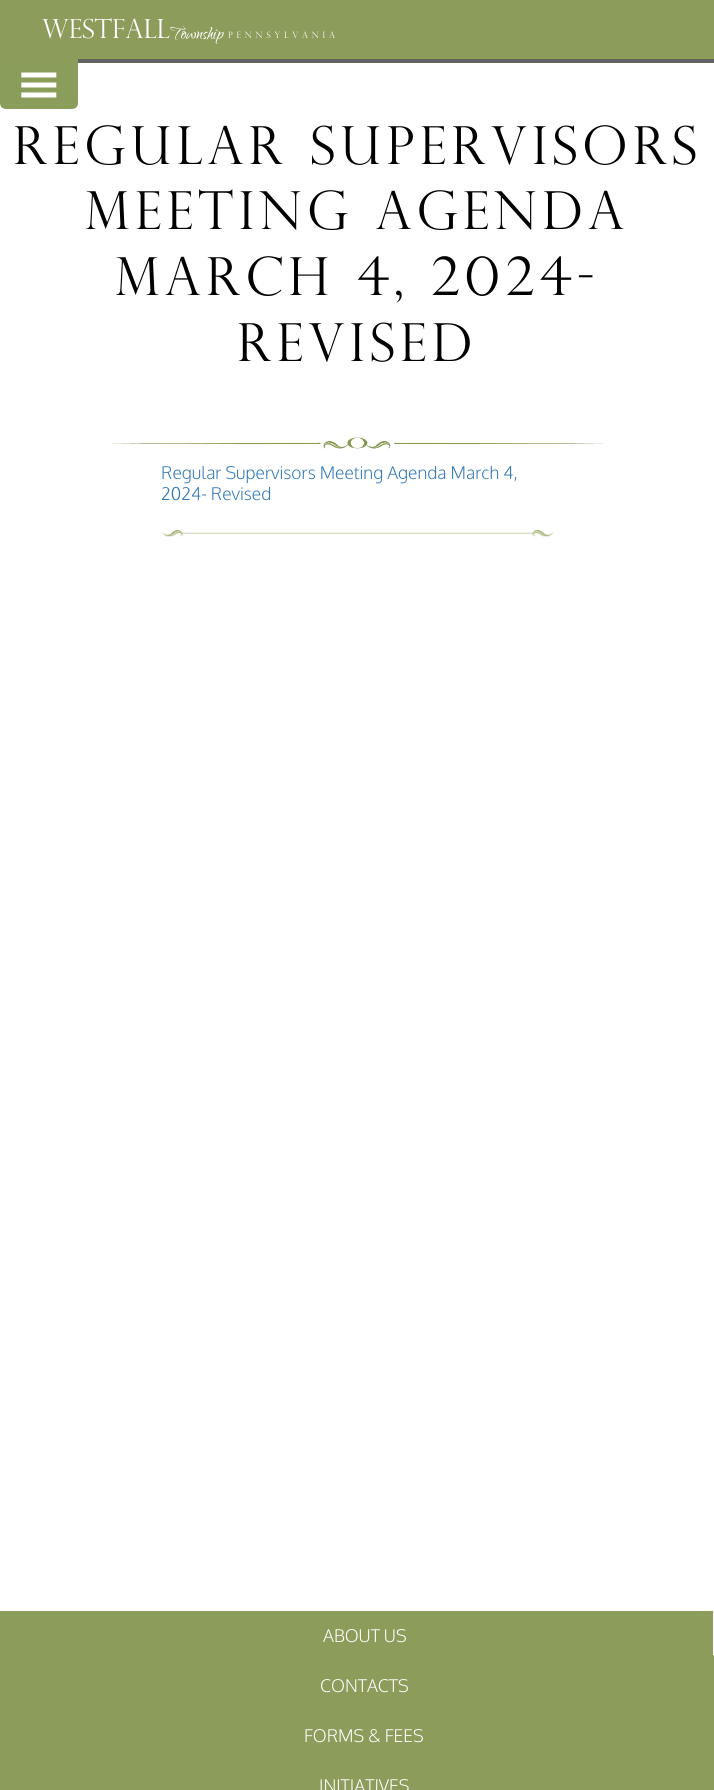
#include <cairo.h>
#include <math.h>
#include <stddef.h>


static void spaced_text(cairo_t *cr, double x, double y, const char *s, double letter, double word) {
    cairo_move_to(cr, x, y);
    while (*s) {
        char ch[5] = {0};
        int n = 0;
        do ch[n++] = *s++; while ((*s & 0xC0) == 0x80);
        cairo_show_text(cr, ch);
        cairo_rel_move_to(cr, letter + word * (*ch == ' '), 0);
    }
}

static void picture(cairo_t *cr, const char *path, double x, double y, double w, double h) {
    cairo_surface_t *image = cairo_image_surface_create_from_png(path);
    cairo_save(cr);
    cairo_set_source_surface(cr, image, x, y);
    cairo_rectangle(cr, x, y, w, h);
    cairo_fill(cr);
    cairo_restore(cr);
    cairo_surface_destroy(image);
}

int main(void) {
    cairo_surface_t *surface = cairo_image_surface_create(CAIRO_FORMAT_RGB24, 714, 1790);
    cairo_t *cr = cairo_create(surface);
    cairo_font_options_t *options = cairo_font_options_create();
    cairo_font_options_set_hint_metrics(options, CAIRO_HINT_METRICS_OFF);
    cairo_font_options_set_hint_style(options, CAIRO_HINT_STYLE_NONE);
    cairo_set_font_options(cr, options);
    cairo_set_miter_limit(cr, 4);
    cairo_set_source_rgb(cr, 1, 1, 1);
    cairo_paint(cr);
    cairo_set_source_rgb(cr, 0.549, 0.616, 0.357);
    cairo_rectangle(cr, 0, 0, 714, 59);
    cairo_fill(cr);
    cairo_set_source_rgb(cr, 0.388, 0.384, 0.388);
    cairo_rectangle(cr, 78, 59, 636, 4);
    cairo_fill(cr);
    cairo_select_font_face(cr, "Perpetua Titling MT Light", CAIRO_FONT_SLANT_NORMAL, CAIRO_FONT_WEIGHT_NORMAL);
    cairo_set_font_size(cr, 26.25);
    cairo_set_source_rgb(cr, 1, 1, 1);
    cairo_move_to(cr, 42, 38);
    cairo_show_text(cr, "WESTFALL");
    cairo_select_font_face(cr, "Qwigley", CAIRO_FONT_SLANT_NORMAL, CAIRO_FONT_WEIGHT_NORMAL);
    cairo_set_font_size(cr, 22);
    cairo_move_to(cr, 170, 38);
    cairo_show_text(cr, "Township");
    cairo_select_font_face(cr, "Perpetua Titling MT Light", CAIRO_FONT_SLANT_NORMAL, CAIRO_FONT_WEIGHT_NORMAL);
    cairo_set_font_size(cr, 8.75);
    spaced_text(cr, 228, 38, "PENNSYLVANIA", 3.75, 0);
    cairo_set_source_rgb(cr, 0.545, 0.616, 0.353);
    cairo_new_path(cr);
    cairo_move_to(cr, 0, 59);
    cairo_line_to(cr, 78, 59);
    cairo_line_to(cr, 78, 103);
    cairo_curve_to(cr, 78, 106.5, 75.5, 109, 72, 109);
    cairo_line_to(cr, 6, 109);
    cairo_curve_to(cr, 2.5, 109, 0, 106.5, 0, 103);
    cairo_close_path(cr);
    cairo_fill(cr);
    picture(cr, "img1.png", 21, 72, 36, 26);
    cairo_set_font_size(cr, 52.5);
    cairo_set_source_rgb(cr, 0, 0, 0);
    spaced_text(cr, 13, 164, "Regular Supervisors", 5, 0);
    spaced_text(cr, 85, 229, "Meeting Agenda", 5, 0);
    spaced_text(cr, 115, 295, "March 4, 2024-", 5, 0);
    spaced_text(cr, 237, 361, "Revised", 5, 0);
    picture(cr, "img2.png", 111, 437, 493, 12);
    cairo_select_font_face(cr, "Oxygen Light", CAIRO_FONT_SLANT_NORMAL, CAIRO_FONT_WEIGHT_NORMAL);
    cairo_set_font_size(cr, 17.5);
    cairo_set_source_rgb(cr, 0.2, 0.478, 0.718);
    cairo_move_to(cr, 161, 479);
    cairo_show_text(cr, "Regular Supervisors Meeting Agenda March 4,");
    cairo_move_to(cr, 161, 500);
    cairo_show_text(cr, "2024- Revised");
    picture(cr, "img3.png", 161, 530, 393, 7);
    cairo_set_source_rgb(cr, 0.549, 0.616, 0.357);
    cairo_rectangle(cr, 0, 1611, 714, 179);
    cairo_fill(cr);
    cairo_set_source_rgb(cr, 1, 1, 1);
    cairo_rectangle(cr, 713, 1611, 1, 44);
    cairo_fill(cr);
    cairo_move_to(cr, 323, 1642);
    cairo_show_text(cr, "ABOUT US");
    cairo_move_to(cr, 320, 1692);
    cairo_show_text(cr, "CONTACTS");
    cairo_move_to(cr, 304, 1742);
    cairo_show_text(cr, "FORMS & FEES");
    cairo_move_to(cr, 319, 1792);
    cairo_show_text(cr, "INITIATIVES");
    cairo_surface_write_to_png(surface, "page.png");
    cairo_font_options_destroy(options);
    cairo_destroy(cr);
    cairo_surface_destroy(surface);
    return 0;
}
